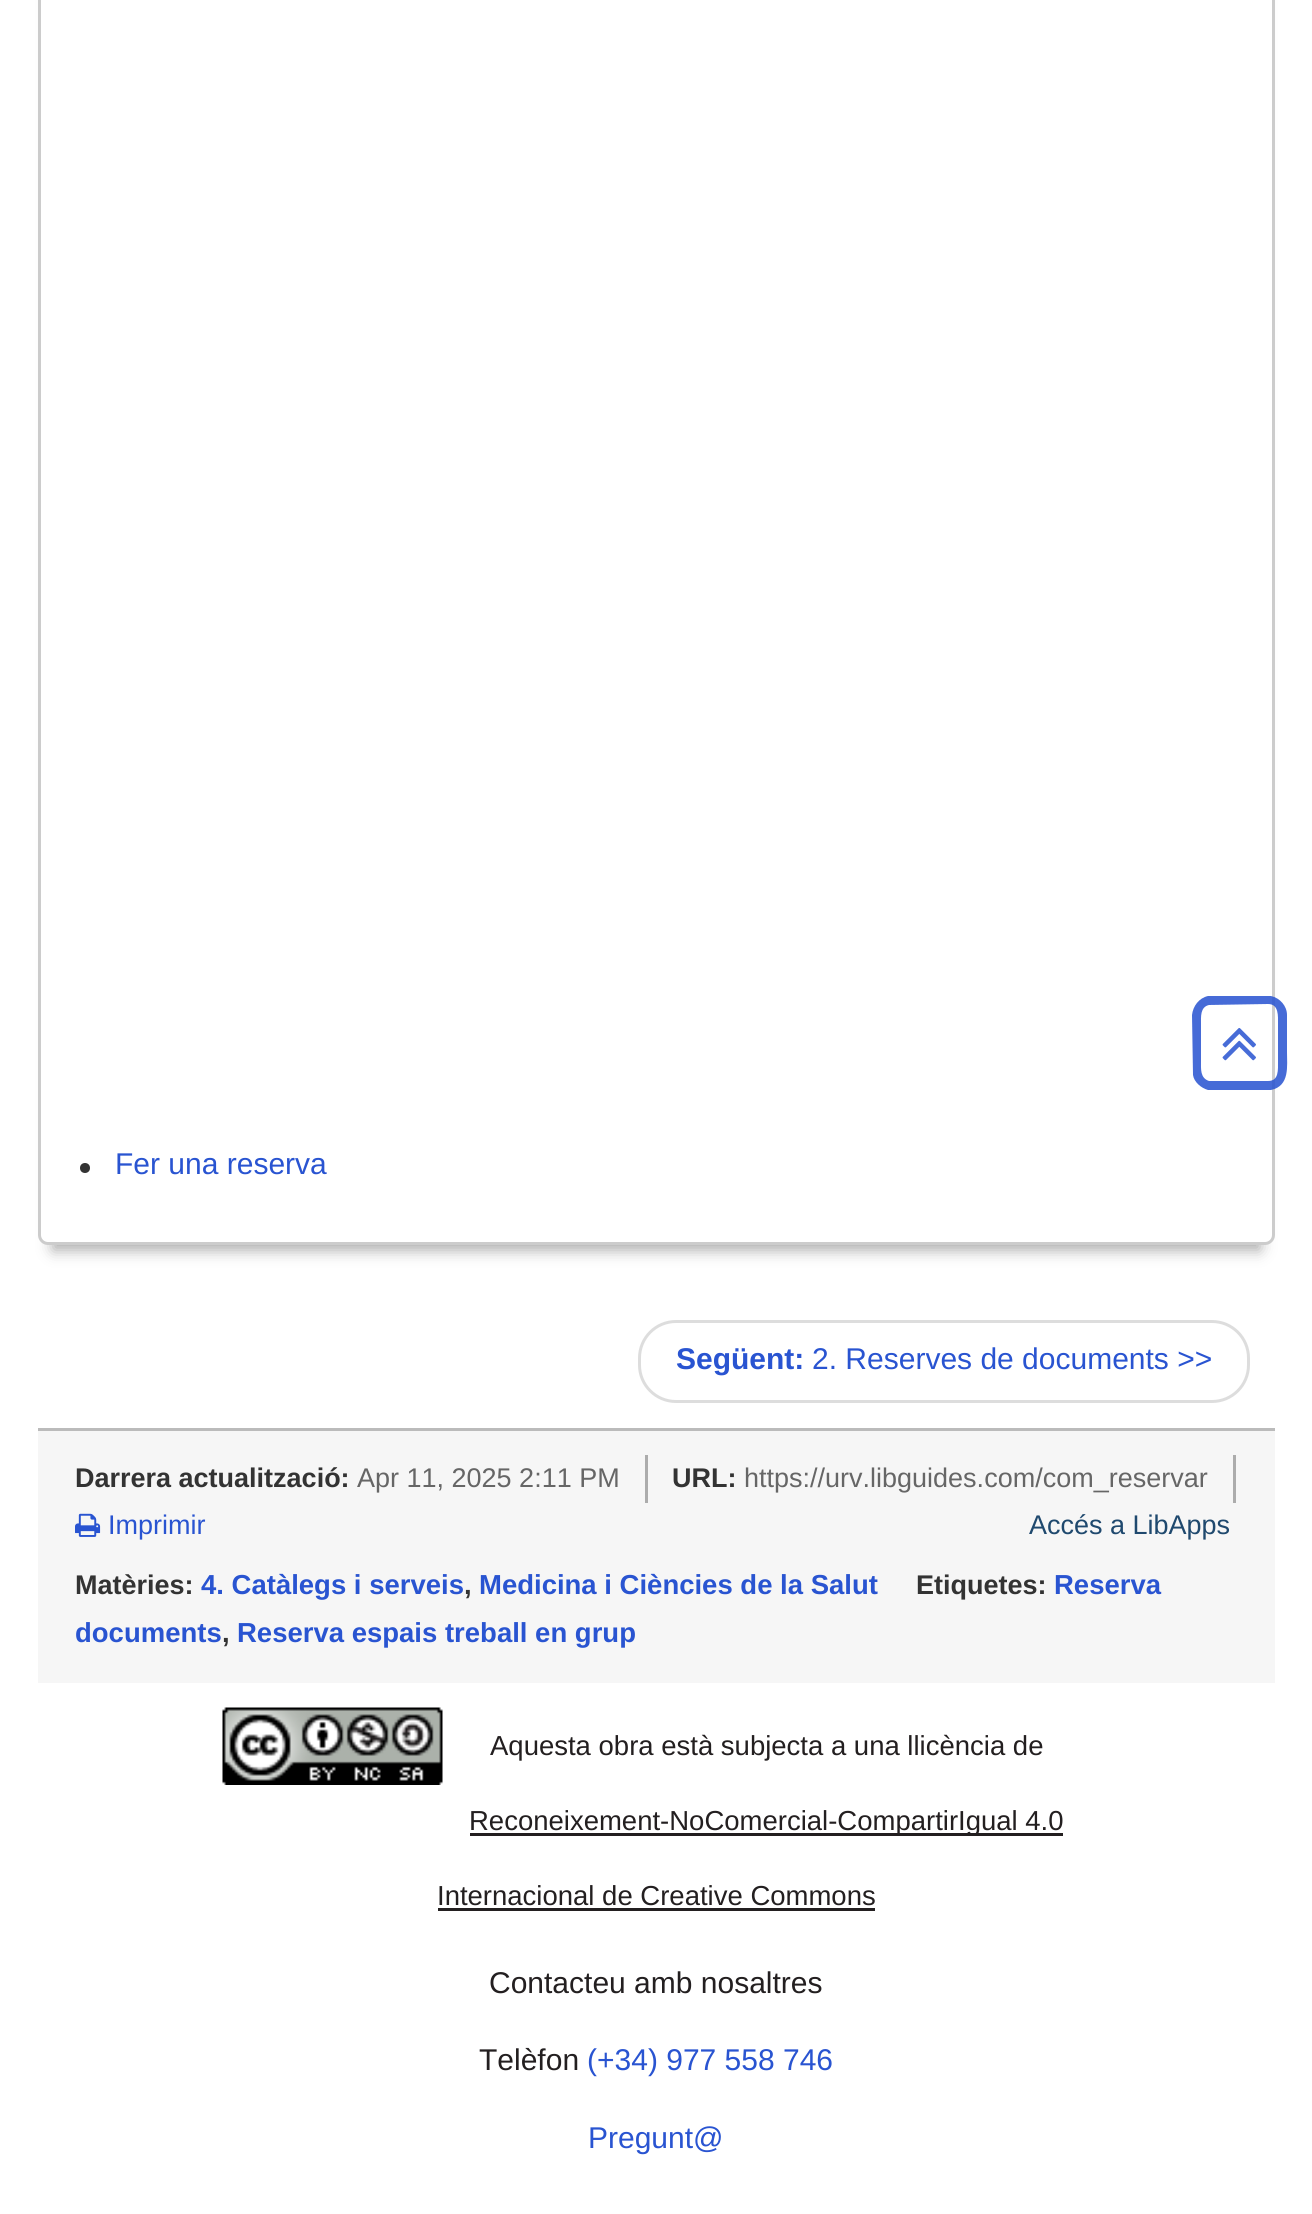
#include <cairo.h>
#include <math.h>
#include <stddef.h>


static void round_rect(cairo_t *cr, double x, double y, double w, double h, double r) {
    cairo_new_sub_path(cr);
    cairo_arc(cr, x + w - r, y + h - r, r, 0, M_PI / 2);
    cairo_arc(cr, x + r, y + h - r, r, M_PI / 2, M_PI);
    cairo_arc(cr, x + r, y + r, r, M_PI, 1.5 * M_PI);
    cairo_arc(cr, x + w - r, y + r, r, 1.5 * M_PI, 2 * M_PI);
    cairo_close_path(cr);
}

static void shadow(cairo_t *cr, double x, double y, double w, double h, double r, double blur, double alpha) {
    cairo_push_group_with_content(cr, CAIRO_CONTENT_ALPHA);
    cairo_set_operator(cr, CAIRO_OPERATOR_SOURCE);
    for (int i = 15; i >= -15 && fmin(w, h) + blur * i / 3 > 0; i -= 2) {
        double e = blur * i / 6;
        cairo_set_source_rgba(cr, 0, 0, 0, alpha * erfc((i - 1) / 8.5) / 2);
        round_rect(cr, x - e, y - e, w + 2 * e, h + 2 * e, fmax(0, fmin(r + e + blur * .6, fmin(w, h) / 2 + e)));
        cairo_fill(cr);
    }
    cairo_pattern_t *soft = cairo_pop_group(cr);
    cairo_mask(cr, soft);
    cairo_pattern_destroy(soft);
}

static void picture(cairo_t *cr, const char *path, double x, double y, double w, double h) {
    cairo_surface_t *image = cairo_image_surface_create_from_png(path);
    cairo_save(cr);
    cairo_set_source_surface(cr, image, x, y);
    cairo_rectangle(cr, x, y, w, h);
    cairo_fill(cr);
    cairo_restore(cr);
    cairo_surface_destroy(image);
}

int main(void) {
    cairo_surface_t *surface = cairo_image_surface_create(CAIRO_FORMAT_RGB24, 1312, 2214);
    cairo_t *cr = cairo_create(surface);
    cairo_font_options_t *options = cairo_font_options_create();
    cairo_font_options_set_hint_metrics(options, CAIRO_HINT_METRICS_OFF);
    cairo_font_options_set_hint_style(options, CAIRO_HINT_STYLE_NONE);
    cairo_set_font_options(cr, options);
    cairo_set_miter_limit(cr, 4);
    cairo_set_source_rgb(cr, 1, 1, 1);
    cairo_paint(cr);
    cairo_set_source_rgb(cr, 0.667, 0.667, 0.667);
    shadow(cr, 53, -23, 1207, 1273, 0, 7.5, 1);
    cairo_set_source_rgb(cr, 1, 1, 1);
    round_rect(cr, 39.5, -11.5, 1234, 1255, 8.5);
    cairo_fill_preserve(cr);
    cairo_set_source_rgb(cr, 0.8, 0.8, 0.8);
    cairo_set_line_width(cr, 3);
    cairo_stroke(cr);
    cairo_set_source_rgba(cr, 0.161, 0.329, 0.82, 0.86);
    cairo_new_path(cr);
    cairo_move_to(cr, 1268, 1004);
    cairo_line_to(cr, 1209, 1005);
    cairo_curve_to(cr, 1200, 1007, 1201, 1017, 1201, 1024);
    cairo_line_to(cr, 1201, 1061);
    cairo_curve_to(cr, 1201, 1069, 1200, 1078, 1209, 1081);
    cairo_line_to(cr, 1268, 1081);
    cairo_curve_to(cr, 1279, 1081, 1278, 1070, 1278, 1061);
    cairo_line_to(cr, 1278, 1024);
    cairo_curve_to(cr, 1278, 1016, 1279, 1004, 1268, 1004);
    cairo_close_path(cr);
    cairo_move_to(cr, 1287, 1015);
    cairo_line_to(cr, 1287, 1052);
    cairo_curve_to(cr, 1287, 1066, 1290, 1086, 1271, 1090);
    cairo_line_to(cr, 1221, 1090);
    cairo_line_to(cr, 1208, 1090);
    cairo_curve_to(cr, 1201, 1088, 1194, 1082, 1193, 1075);
    cairo_line_to(cr, 1192, 1015);
    cairo_curve_to(cr, 1193, 1006, 1199, 998, 1208, 996);
    cairo_line_to(cr, 1221, 996);
    cairo_line_to(cr, 1271, 996);
    cairo_curve_to(cr, 1280, 998, 1287, 1006, 1287, 1015);
    cairo_close_path(cr);
    cairo_fill(cr);
    picture(cr, "img1.png", 1222, 1028, 34, 33);
    cairo_set_source_rgb(cr, 0.2, 0.2, 0.2);
    cairo_arc(cr, 85, 1168, 5, 0, 2 * M_PI);
    cairo_fill(cr);
    cairo_select_font_face(cr, "Liberation Sans", CAIRO_FONT_SLANT_NORMAL, CAIRO_FONT_WEIGHT_NORMAL);
    cairo_set_font_size(cr, 30);
    cairo_set_source_rgb(cr, 0.161, 0.329, 0.82);
    cairo_move_to(cr, 115, 1174);
    cairo_show_text(cr, "Fer una reserva");
    round_rect(cr, 639.5, 1321.5, 609, 80, 36.5);
    cairo_set_source_rgb(cr, 0.867, 0.867, 0.867);
    cairo_stroke(cr);
    cairo_select_font_face(cr, "Liberation Sans", CAIRO_FONT_SLANT_NORMAL, CAIRO_FONT_WEIGHT_BOLD);
    cairo_set_source_rgb(cr, 0.161, 0.329, 0.82);
    cairo_move_to(cr, 676, 1369);
    cairo_show_text(cr, "Següent:");
    cairo_select_font_face(cr, "Liberation Sans", CAIRO_FONT_SLANT_NORMAL, CAIRO_FONT_WEIGHT_NORMAL);
    cairo_move_to(cr, 812, 1369);
    cairo_show_text(cr, "2. Reserves de documents >>");
    cairo_set_source_rgb(cr, 0.961, 0.961, 0.961);
    cairo_rectangle(cr, 38, 1431, 1237, 252);
    cairo_fill(cr);
    cairo_set_source_rgb(cr, 0.733, 0.733, 0.733);
    cairo_rectangle(cr, 38, 1428, 1237, 3);
    cairo_fill(cr);
    cairo_set_source_rgb(cr, 0.675, 0.675, 0.675);
    cairo_rectangle(cr, 645, 1455, 3, 48);
    cairo_fill(cr);
    cairo_select_font_face(cr, "Liberation Sans", CAIRO_FONT_SLANT_NORMAL, CAIRO_FONT_WEIGHT_BOLD);
    cairo_set_font_size(cr, 27);
    cairo_set_source_rgb(cr, 0.2, 0.2, 0.2);
    cairo_move_to(cr, 75, 1487);
    cairo_show_text(cr, "Darrera actualització:");
    cairo_select_font_face(cr, "Liberation Sans", CAIRO_FONT_SLANT_NORMAL, CAIRO_FONT_WEIGHT_NORMAL);
    cairo_set_source_rgb(cr, 0.4, 0.4, 0.4);
    cairo_move_to(cr, 357, 1487);
    cairo_show_text(cr, "Apr 11, 2025 2:11 PM");
    cairo_set_source_rgb(cr, 0.675, 0.675, 0.675);
    cairo_rectangle(cr, 1233, 1455, 3, 48);
    cairo_fill(cr);
    cairo_select_font_face(cr, "Liberation Sans", CAIRO_FONT_SLANT_NORMAL, CAIRO_FONT_WEIGHT_BOLD);
    cairo_set_source_rgb(cr, 0.2, 0.2, 0.2);
    cairo_move_to(cr, 672, 1487);
    cairo_show_text(cr, "URL:");
    cairo_select_font_face(cr, "Liberation Sans", CAIRO_FONT_SLANT_NORMAL, CAIRO_FONT_WEIGHT_NORMAL);
    cairo_set_source_rgb(cr, 0.4, 0.4, 0.4);
    cairo_move_to(cr, 744, 1487);
    cairo_show_text(cr, "https://urv.libguides.com/com_reservar");
    picture(cr, "img2.png", 75, 1513, 26, 24);
    cairo_set_source_rgb(cr, 0.161, 0.329, 0.82);
    cairo_move_to(cr, 108, 1534);
    cairo_show_text(cr, "Imprimir");
    cairo_set_source_rgb(cr, 0.122, 0.286, 0.431);
    cairo_move_to(cr, 1029, 1534);
    cairo_show_text(cr, "Accés a LibApps");
    cairo_select_font_face(cr, "Liberation Sans", CAIRO_FONT_SLANT_NORMAL, CAIRO_FONT_WEIGHT_BOLD);
    cairo_set_source_rgb(cr, 0.2, 0.2, 0.2);
    cairo_move_to(cr, 75, 1594);
    cairo_show_text(cr, "Matèries:");
    cairo_set_font_size(cr, 27.5);
    cairo_set_source_rgb(cr, 0.161, 0.329, 0.82);
    cairo_move_to(cr, 201, 1594);
    cairo_show_text(cr, "4. Catàlegs i serveis");
    cairo_set_source_rgb(cr, 0.2, 0.2, 0.2);
    cairo_move_to(cr, 464, 1594);
    cairo_show_text(cr, ",");
    cairo_set_source_rgb(cr, 0.161, 0.329, 0.82);
    cairo_move_to(cr, 479, 1594);
    cairo_show_text(cr, "Medicina i Ciències de la Salut");
    cairo_set_font_size(cr, 27);
    cairo_set_source_rgb(cr, 0.2, 0.2, 0.2);
    cairo_move_to(cr, 916, 1594);
    cairo_show_text(cr, "Etiquetes:");
    cairo_set_font_size(cr, 27.5);
    cairo_set_source_rgb(cr, 0.161, 0.329, 0.82);
    cairo_move_to(cr, 1054, 1594);
    cairo_show_text(cr, "Reserva");
    cairo_move_to(cr, 75, 1642);
    cairo_show_text(cr, "documents");
    cairo_set_source_rgb(cr, 0.2, 0.2, 0.2);
    cairo_move_to(cr, 222, 1642);
    cairo_show_text(cr, ",");
    cairo_set_source_rgb(cr, 0.161, 0.329, 0.82);
    cairo_move_to(cr, 237, 1642);
    cairo_show_text(cr, "Reserva espais treball en grup");
    picture(cr, "img3.png", 222, 1707, 221, 78);
    cairo_select_font_face(cr, "Liberation Sans", CAIRO_FONT_SLANT_NORMAL, CAIRO_FONT_WEIGHT_NORMAL);
    cairo_set_source_rgb(cr, 0.137, 0.122, 0.125);
    cairo_move_to(cr, 490, 1755);
    cairo_show_text(cr, "Aquesta obra està subjecta a una llicència de");
    cairo_rectangle(cr, 470, 1833, 593, 3);
    cairo_fill(cr);
    cairo_move_to(cr, 469, 1830);
    cairo_show_text(cr, "Reconeixement-NoComercial-CompartirIgual 4.0");
    cairo_move_to(cr, 437, 1905);
    cairo_show_text(cr, "Internacional de Creative Commons");
    cairo_rectangle(cr, 438, 1908, 437, 3);
    cairo_fill(cr);
    cairo_set_font_size(cr, 30);
    cairo_move_to(cr, 489, 1993);
    cairo_show_text(cr, "Contacteu amb nosaltres");
    cairo_move_to(cr, 479, 2070);
    cairo_show_text(cr, "Telèfon");
    cairo_set_source_rgb(cr, 0.161, 0.329, 0.82);
    cairo_move_to(cr, 587, 2070);
    cairo_show_text(cr, "(+34) 977 558 746");
    cairo_move_to(cr, 588, 2148);
    cairo_show_text(cr, "Pregunt@");
    cairo_surface_write_to_png(surface, "page.png");
    cairo_font_options_destroy(options);
    cairo_destroy(cr);
    cairo_surface_destroy(surface);
    return 0;
}
